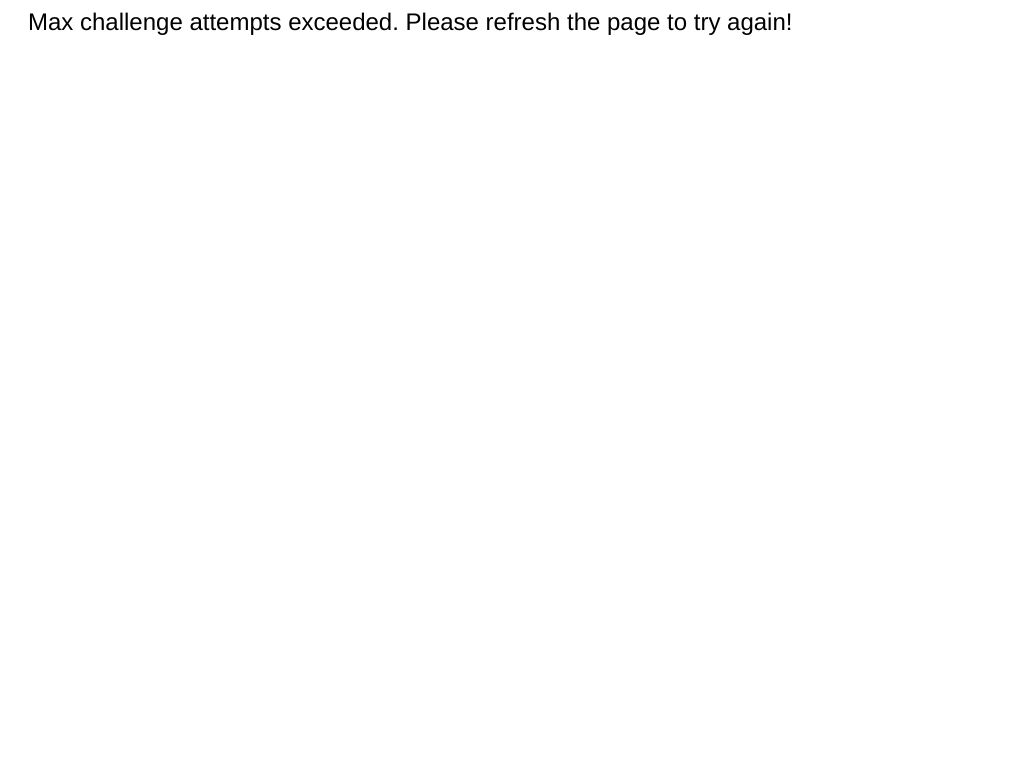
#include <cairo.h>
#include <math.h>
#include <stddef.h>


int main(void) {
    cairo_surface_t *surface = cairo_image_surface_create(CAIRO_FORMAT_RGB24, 1024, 768);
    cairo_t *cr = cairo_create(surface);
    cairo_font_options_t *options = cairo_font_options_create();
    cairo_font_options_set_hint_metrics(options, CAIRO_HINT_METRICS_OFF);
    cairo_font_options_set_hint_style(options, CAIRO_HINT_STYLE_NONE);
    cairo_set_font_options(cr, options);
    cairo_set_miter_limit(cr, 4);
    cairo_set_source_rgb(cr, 1, 1, 1);
    cairo_paint(cr);
    cairo_select_font_face(cr, "Liberation Sans", CAIRO_FONT_SLANT_NORMAL, CAIRO_FONT_WEIGHT_NORMAL);
    cairo_set_font_size(cr, 24);
    cairo_set_source_rgb(cr, 0, 0, 0);
    cairo_move_to(cr, 28, 30);
    cairo_show_text(cr, "Max challenge attempts exceeded. Please refresh the page to try again!");
    cairo_surface_write_to_png(surface, "page.png");
    cairo_font_options_destroy(options);
    cairo_destroy(cr);
    cairo_surface_destroy(surface);
    return 0;
}
